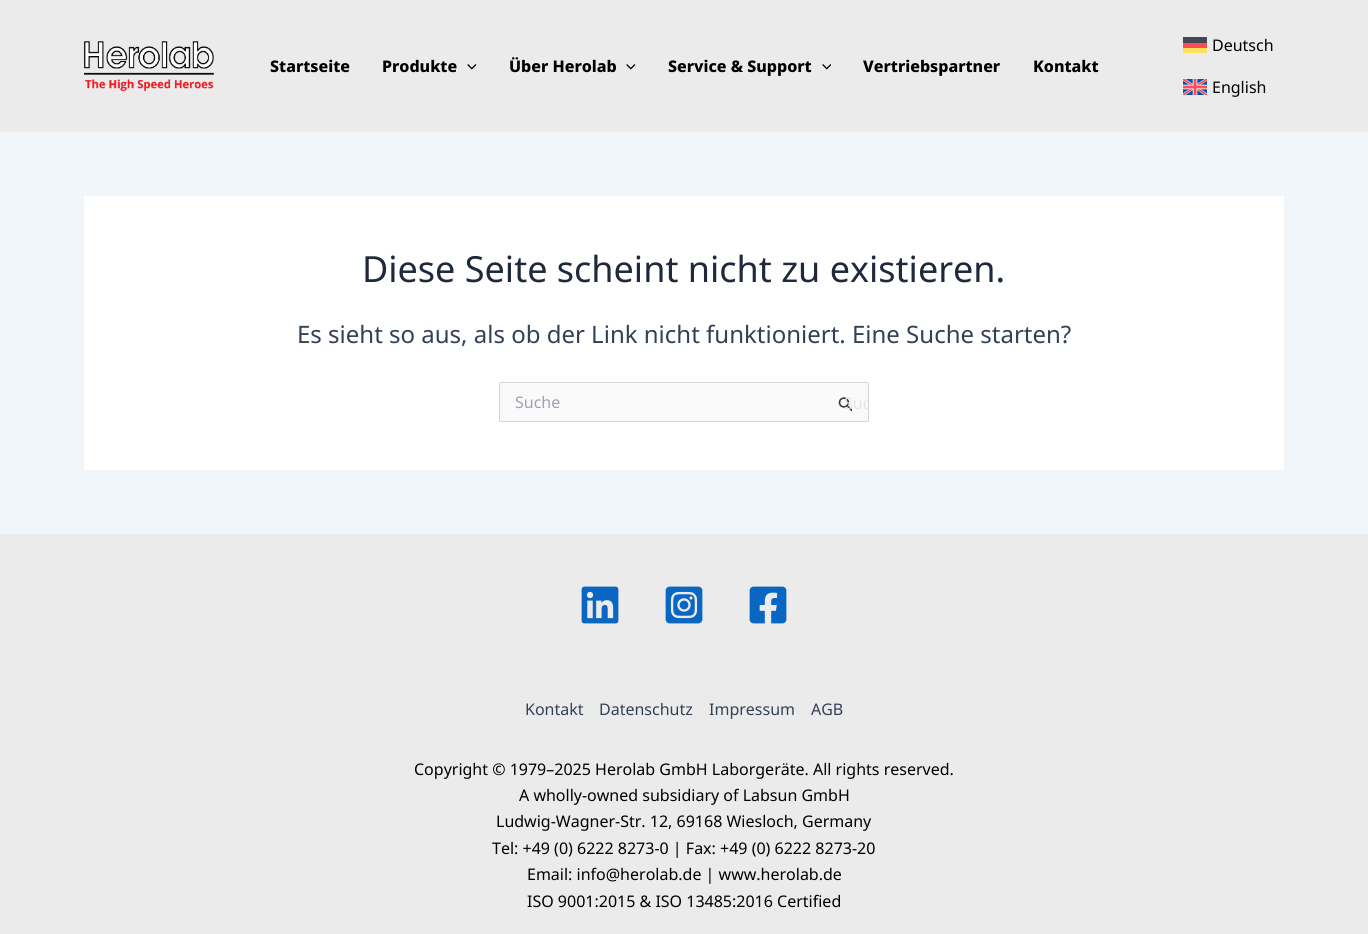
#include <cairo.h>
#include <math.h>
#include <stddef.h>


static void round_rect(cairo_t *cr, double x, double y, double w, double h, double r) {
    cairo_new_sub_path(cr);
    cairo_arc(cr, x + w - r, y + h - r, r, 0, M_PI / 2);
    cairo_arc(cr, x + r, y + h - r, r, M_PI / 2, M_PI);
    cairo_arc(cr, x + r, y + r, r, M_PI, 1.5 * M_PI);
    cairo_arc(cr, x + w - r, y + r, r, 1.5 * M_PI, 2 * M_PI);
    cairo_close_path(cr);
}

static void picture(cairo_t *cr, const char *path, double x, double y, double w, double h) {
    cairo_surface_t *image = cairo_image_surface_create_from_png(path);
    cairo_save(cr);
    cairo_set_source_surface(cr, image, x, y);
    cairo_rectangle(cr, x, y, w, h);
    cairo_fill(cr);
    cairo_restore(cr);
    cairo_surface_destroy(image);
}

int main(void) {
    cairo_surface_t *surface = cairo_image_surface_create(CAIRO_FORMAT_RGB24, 1368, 934);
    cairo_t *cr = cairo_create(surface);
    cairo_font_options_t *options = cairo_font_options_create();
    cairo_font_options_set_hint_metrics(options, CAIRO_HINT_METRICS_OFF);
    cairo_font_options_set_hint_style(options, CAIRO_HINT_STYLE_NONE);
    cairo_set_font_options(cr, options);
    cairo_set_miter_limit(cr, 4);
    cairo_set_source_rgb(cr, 0.941, 0.961, 0.98);
    cairo_paint(cr);
    cairo_set_source_rgb(cr, 0.918, 0.918, 0.918);
    cairo_rectangle(cr, 0, 0, 1368, 132);
    cairo_fill(cr);
    picture(cr, "img1.png", 84, 41, 130, 50);
    cairo_select_font_face(cr, "Noto Sans ExtraBold", CAIRO_FONT_SLANT_NORMAL, CAIRO_FONT_WEIGHT_NORMAL);
    cairo_set_font_size(cr, 16);
    cairo_set_source_rgb(cr, 0, 0, 0);
    cairo_move_to(cr, 270, 72);
    cairo_show_text(cr, "Startseite");
    cairo_move_to(cr, 382, 72);
    cairo_show_text(cr, "Produkte");
    picture(cr, "img2.png", 467, 64, 10, 6);
    cairo_move_to(cr, 509, 72);
    cairo_show_text(cr, "Über Herolab");
    picture(cr, "img2.png", 626, 64, 10, 6);
    cairo_move_to(cr, 668, 72);
    cairo_show_text(cr, "Service & Support");
    picture(cr, "img3.png", 822, 64, 9, 6);
    cairo_move_to(cr, 863, 72);
    cairo_show_text(cr, "Vertriebspartner");
    cairo_move_to(cr, 1033, 72);
    cairo_show_text(cr, "Kontakt");
    cairo_set_source_rgb(cr, 1, 0.294, 0.333);
    cairo_rectangle(cr, 1183, 43, 24, 5);
    cairo_fill(cr);
    cairo_set_source_rgb(cr, 1, 0.882, 0.353);
    cairo_rectangle(cr, 1183, 48, 24, 5);
    cairo_fill(cr);
    cairo_set_source_rgb(cr, 0.275, 0.275, 0.333);
    cairo_rectangle(cr, 1183, 37, 24, 6);
    cairo_fill(cr);
    cairo_select_font_face(cr, "Noto Sans", CAIRO_FONT_SLANT_NORMAL, CAIRO_FONT_WEIGHT_NORMAL);
    cairo_set_source_rgb(cr, 0, 0, 0);
    cairo_move_to(cr, 1212, 51);
    cairo_show_text(cr, "Deutsch");
    picture(cr, "img4.png", 1183, 79, 24, 16);
    cairo_move_to(cr, 1212, 93);
    cairo_show_text(cr, "English");
    cairo_set_source_rgb(cr, 1, 1, 1);
    cairo_rectangle(cr, 84, 196, 1200, 274);
    cairo_fill(cr);
    cairo_set_font_size(cr, 36);
    cairo_set_source_rgb(cr, 0.118, 0.161, 0.231);
    cairo_move_to(cr, 362, 282);
    cairo_show_text(cr, "Diese Seite scheint nicht zu existieren.");
    cairo_set_font_size(cr, 24);
    cairo_set_source_rgb(cr, 0.2, 0.255, 0.333);
    cairo_move_to(cr, 297, 343);
    cairo_show_text(cr, "Es sieht so aus, als ob der Link nicht funktioniert. Eine Suche starten?");
    cairo_set_source_rgb(cr, 0.98, 0.98, 0.98);
    round_rect(cr, 499.5, 382.5, 369, 39, 1.5);
    cairo_fill_preserve(cr);
    cairo_set_source_rgb(cr, 0.82, 0.835, 0.859);
    cairo_set_line_width(cr, 1);
    cairo_stroke(cr);
    cairo_set_font_size(cr, 16);
    cairo_set_source_rgb(cr, 0.612, 0.639, 0.686);
    cairo_move_to(cr, 515, 408);
    cairo_show_text(cr, "Suche");
    picture(cr, "img5.png", 838, 397, 14, 15);
    cairo_save(cr);
    round_rect(cr, 824, 382, 45, 42, 2);
    cairo_clip(cr);
    cairo_set_source_rgb(cr, 0.898, 0.898, 0.898);
    cairo_move_to(cr, 844, 409);
    cairo_show_text(cr, "Suc");
    cairo_restore(cr);
    cairo_set_source_rgb(cr, 0.918, 0.918, 0.918);
    cairo_rectangle(cr, 0, 534, 1368, 400);
    cairo_fill(cr);
    picture(cr, "img6.png", 581, 586, 38, 38);
    picture(cr, "img7.png", 665, 586, 38, 38);
    picture(cr, "img8.png", 749, 586, 38, 38);
    cairo_set_source_rgb(cr, 0.2, 0.255, 0.333);
    cairo_move_to(cr, 525, 715);
    cairo_show_text(cr, "Kontakt");
    cairo_move_to(cr, 599, 715);
    cairo_show_text(cr, "Datenschutz");
    cairo_move_to(cr, 709, 715);
    cairo_show_text(cr, "Impressum");
    cairo_move_to(cr, 811, 715);
    cairo_show_text(cr, "AGB");
    cairo_set_source_rgb(cr, 0, 0, 0);
    cairo_move_to(cr, 414, 775);
    cairo_show_text(cr, "Copyright © 1979–2025 Herolab GmbH Laborgeräte. All rights reserved.");
    cairo_move_to(cr, 519, 801);
    cairo_show_text(cr, "A wholly-owned subsidiary of Labsun GmbH");
    cairo_move_to(cr, 496, 827);
    cairo_show_text(cr, "Ludwig-Wagner-Str. 12, 69168 Wiesloch, Germany");
    cairo_move_to(cr, 492, 854);
    cairo_show_text(cr, "Tel: +49 (0) 6222 8273-0 | Fax: +49 (0) 6222 8273-20");
    cairo_move_to(cr, 527, 880);
    cairo_show_text(cr, "Email: info@herolab.de | www.herolab.de");
    cairo_move_to(cr, 527, 907);
    cairo_show_text(cr, "ISO 9001:2015 & ISO 13485:2016 Certified");
    cairo_surface_write_to_png(surface, "page.png");
    cairo_font_options_destroy(options);
    cairo_destroy(cr);
    cairo_surface_destroy(surface);
    return 0;
}
